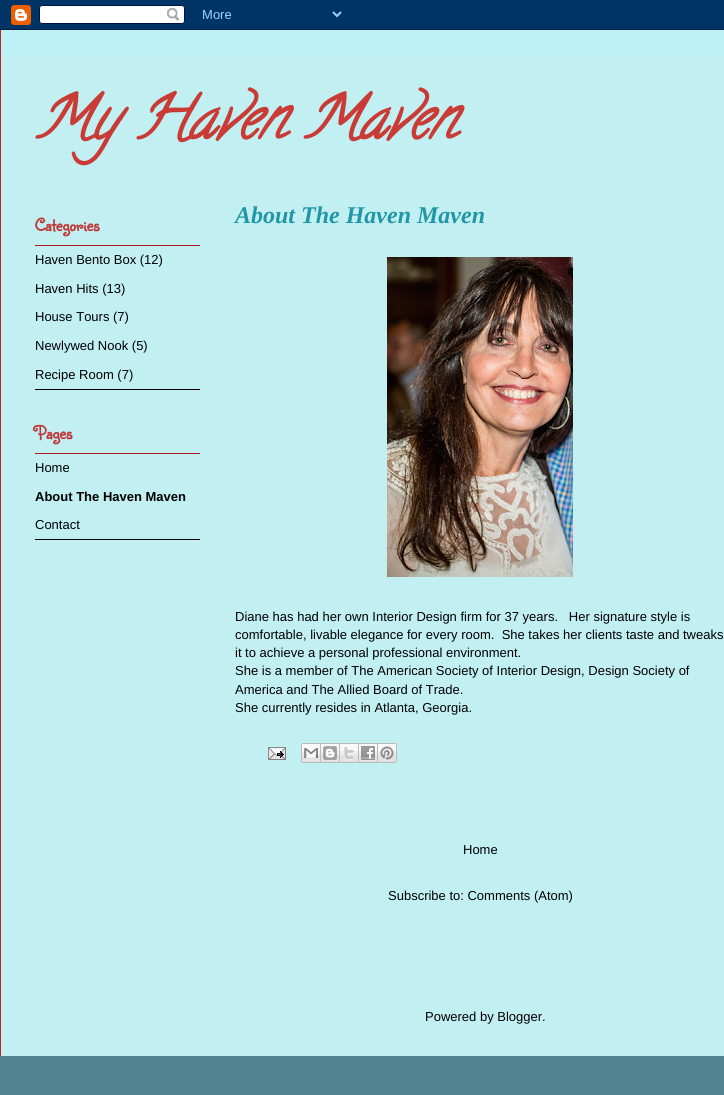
#include <cairo.h>
#include <math.h>
#include <stddef.h>


static void picture(cairo_t *cr, const char *path, double x, double y, double w, double h) {
    cairo_surface_t *image = cairo_image_surface_create_from_png(path);
    cairo_save(cr);
    cairo_set_source_surface(cr, image, x, y);
    cairo_rectangle(cr, x, y, w, h);
    cairo_fill(cr);
    cairo_restore(cr);
    cairo_surface_destroy(image);
}

int main(void) {
    cairo_surface_t *surface = cairo_image_surface_create(CAIRO_FORMAT_RGB24, 724, 1095);
    cairo_t *cr = cairo_create(surface);
    cairo_font_options_t *options = cairo_font_options_create();
    cairo_font_options_set_hint_metrics(options, CAIRO_HINT_METRICS_OFF);
    cairo_font_options_set_hint_style(options, CAIRO_HINT_STYLE_NONE);
    cairo_set_font_options(cr, options);
    cairo_set_miter_limit(cr, 4);
    cairo_set_source_rgb(cr, 0.314, 0.514, 0.565);
    cairo_paint(cr);
    picture(cr, "img1.png", 0, 0, 724, 30);
    cairo_set_source_rgb(cr, 0.757, 0.937, 0.949);
    cairo_rectangle(cr, 1, 54, 723, 1002);
    cairo_fill(cr);
    cairo_set_source_rgb(cr, 0.741, 0.945, 0.961);
    cairo_rectangle(cr, 1, 30, 723, 24);
    cairo_fill(cr);
    cairo_set_source_rgb(cr, 0.651, 0.184, 0.129);
    cairo_rectangle(cr, 0, 30, 1, 1026);
    cairo_fill(cr);
    cairo_select_font_face(cr, "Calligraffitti", CAIRO_FONT_SLANT_ITALIC, CAIRO_FONT_WEIGHT_BOLD);
    cairo_set_font_size(cr, 60);
    cairo_set_source_rgb(cr, 0.788, 0.231, 0.204);
    cairo_move_to(cr, 35, 137);
    cairo_show_text(cr, "My Haven Maven");
    cairo_set_source_rgb(cr, 0, 0, 0);
    cairo_rectangle(cr, 35, 389, 165, 1);
    cairo_fill(cr);
    cairo_set_source_rgb(cr, 0.69, 0.106, 0.106);
    cairo_rectangle(cr, 35, 245, 165, 1);
    cairo_fill(cr);
    cairo_select_font_face(cr, "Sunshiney", CAIRO_FONT_SLANT_NORMAL, CAIRO_FONT_WEIGHT_BOLD);
    cairo_set_font_size(cr, 18);
    cairo_set_source_rgb(cr, 0.757, 0.212, 0.212);
    cairo_move_to(cr, 35, 231);
    cairo_show_text(cr, "Categories");
    cairo_select_font_face(cr, "Liberation Sans", CAIRO_FONT_SLANT_NORMAL, CAIRO_FONT_WEIGHT_NORMAL);
    cairo_set_font_size(cr, 13);
    cairo_set_source_rgb(cr, 0, 0, 0);
    cairo_move_to(cr, 35, 264);
    cairo_show_text(cr, "Haven Bento Box (12)");
    cairo_move_to(cr, 35, 293);
    cairo_show_text(cr, "Haven Hits (13)");
    cairo_move_to(cr, 35, 321);
    cairo_show_text(cr, "House Tours (7)");
    cairo_move_to(cr, 35, 350);
    cairo_show_text(cr, "Newlywed Nook (5)");
    cairo_move_to(cr, 35, 379);
    cairo_show_text(cr, "Recipe Room (7)");
    cairo_rectangle(cr, 35, 539, 165, 1);
    cairo_fill(cr);
    cairo_set_source_rgb(cr, 0.69, 0.106, 0.106);
    cairo_rectangle(cr, 35, 453, 165, 1);
    cairo_fill(cr);
    cairo_select_font_face(cr, "Sunshiney", CAIRO_FONT_SLANT_NORMAL, CAIRO_FONT_WEIGHT_BOLD);
    cairo_set_font_size(cr, 18);
    cairo_set_source_rgb(cr, 0.757, 0.212, 0.212);
    cairo_move_to(cr, 35, 439);
    cairo_show_text(cr, "Pages");
    cairo_select_font_face(cr, "Liberation Sans", CAIRO_FONT_SLANT_NORMAL, CAIRO_FONT_WEIGHT_NORMAL);
    cairo_set_font_size(cr, 13);
    cairo_set_source_rgb(cr, 0, 0, 0);
    cairo_move_to(cr, 35, 472);
    cairo_show_text(cr, "Home");
    cairo_select_font_face(cr, "Liberation Sans", CAIRO_FONT_SLANT_NORMAL, CAIRO_FONT_WEIGHT_BOLD);
    cairo_move_to(cr, 35, 501);
    cairo_show_text(cr, "About The Haven Maven");
    cairo_select_font_face(cr, "Liberation Sans", CAIRO_FONT_SLANT_NORMAL, CAIRO_FONT_WEIGHT_NORMAL);
    cairo_move_to(cr, 35, 529);
    cairo_show_text(cr, "Contact");
    cairo_select_font_face(cr, "Liberation Serif", CAIRO_FONT_SLANT_ITALIC, CAIRO_FONT_WEIGHT_BOLD);
    cairo_set_font_size(cr, 24);
    cairo_set_source_rgb(cr, 0.129, 0.592, 0.651);
    cairo_move_to(cr, 235, 223);
    cairo_show_text(cr, "About The Haven Maven");
    picture(cr, "img2.png", 387, 257, 186, 320);
    cairo_select_font_face(cr, "Liberation Sans", CAIRO_FONT_SLANT_NORMAL, CAIRO_FONT_WEIGHT_NORMAL);
    cairo_set_font_size(cr, 13);
    cairo_set_source_rgb(cr, 0, 0, 0);
    cairo_move_to(cr, 235, 621);
    cairo_show_text(cr, "Diane has had her own Interior Design firm for 37 years.   Her signature style is");
    cairo_move_to(cr, 235, 639);
    cairo_show_text(cr, "comfortable, livable elegance for every room.  She takes her clients taste and tweaks");
    cairo_move_to(cr, 235, 657);
    cairo_show_text(cr, "it to achieve a personal professional environment.");
    cairo_move_to(cr, 235, 675);
    cairo_show_text(cr, "She is a member of The American Society of Interior Design, Design Society of");
    cairo_move_to(cr, 235, 694);
    cairo_show_text(cr, "America and The Allied Board of Trade.");
    cairo_move_to(cr, 235, 712);
    cairo_show_text(cr, "She currently resides in Atlanta, Georgia.");
    picture(cr, "img3.png", 268, 747, 18, 13);
    picture(cr, "img4.png", 301, 743, 20, 20);
    picture(cr, "img5.png", 321, 743, 19, 20);
    picture(cr, "img6.png", 340, 743, 19, 20);
    picture(cr, "img7.png", 359, 743, 19, 20);
    picture(cr, "img8.png", 378, 743, 19, 20);
    cairo_move_to(cr, 463, 854);
    cairo_show_text(cr, "Home");
    cairo_move_to(cr, 388, 900);
    cairo_show_text(cr, "Subscribe to: Comments (Atom)");
    cairo_move_to(cr, 425, 1021);
    cairo_show_text(cr, "Powered by Blogger.");
    cairo_surface_write_to_png(surface, "page.png");
    cairo_font_options_destroy(options);
    cairo_destroy(cr);
    cairo_surface_destroy(surface);
    return 0;
}
